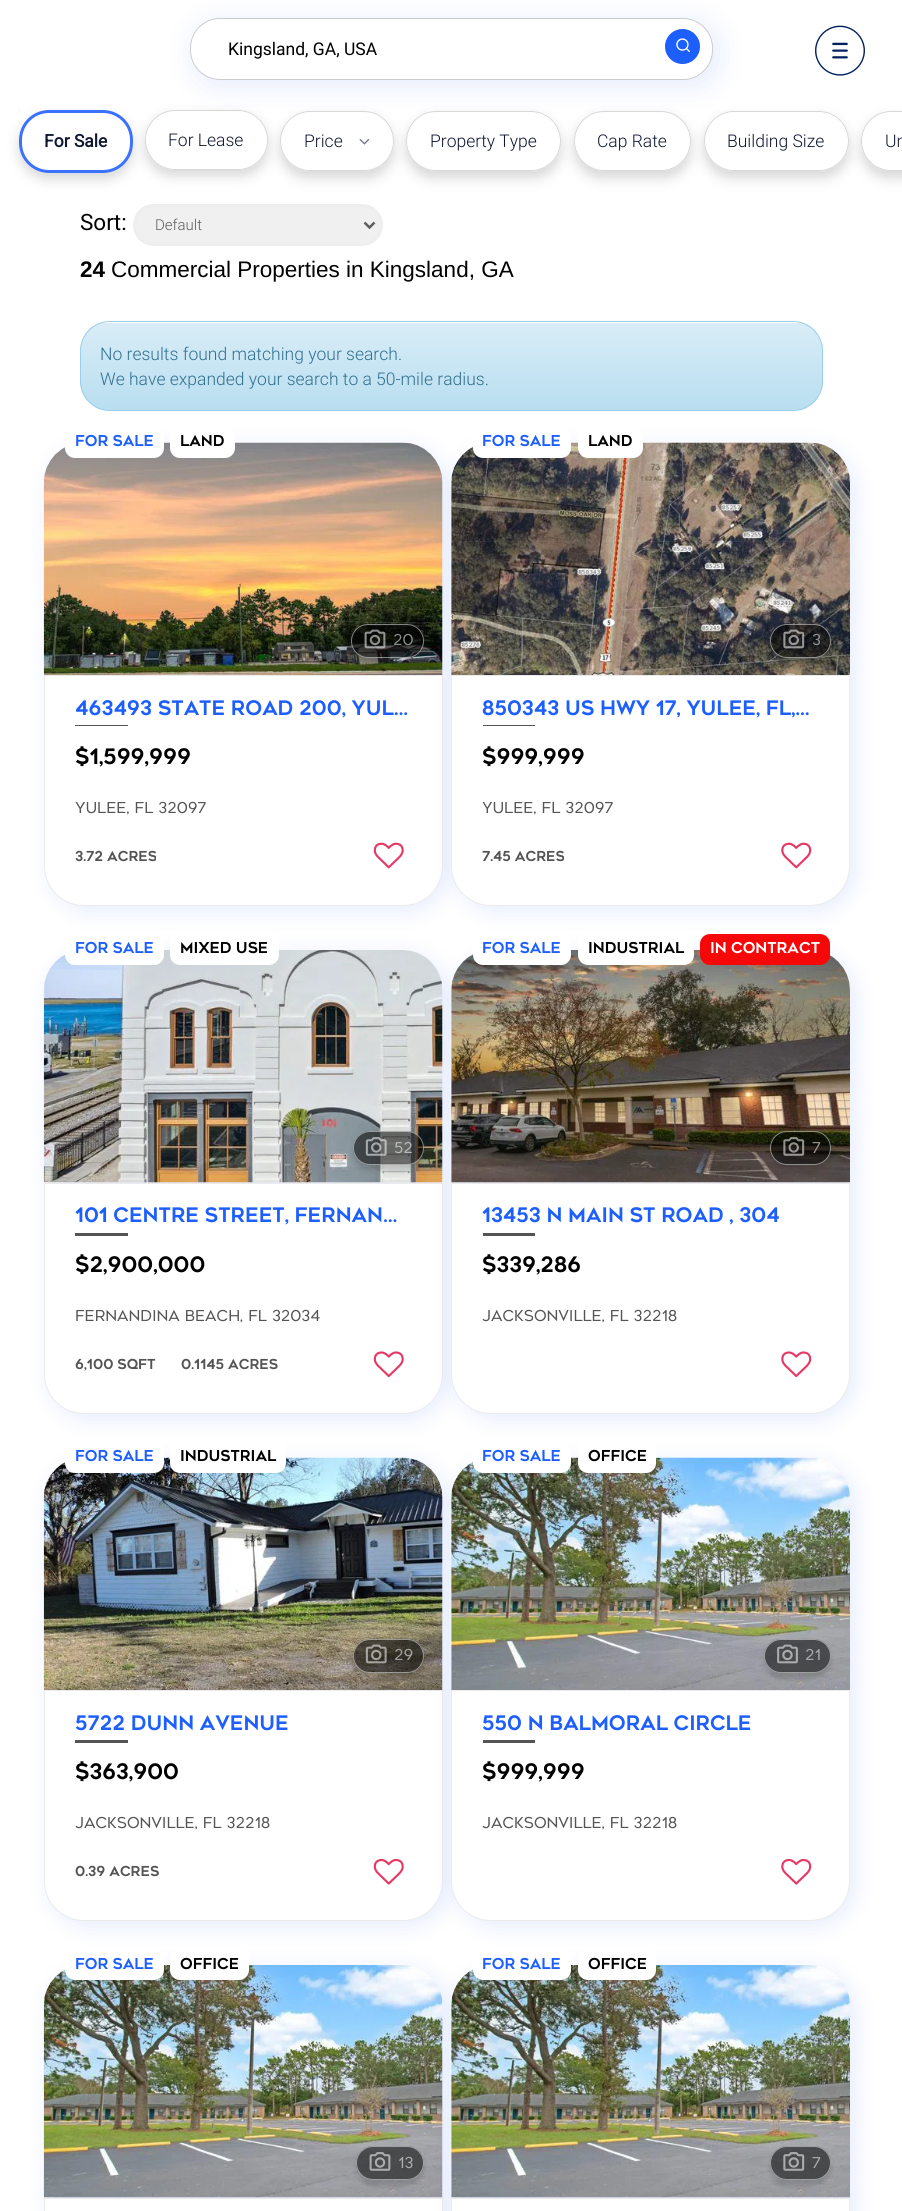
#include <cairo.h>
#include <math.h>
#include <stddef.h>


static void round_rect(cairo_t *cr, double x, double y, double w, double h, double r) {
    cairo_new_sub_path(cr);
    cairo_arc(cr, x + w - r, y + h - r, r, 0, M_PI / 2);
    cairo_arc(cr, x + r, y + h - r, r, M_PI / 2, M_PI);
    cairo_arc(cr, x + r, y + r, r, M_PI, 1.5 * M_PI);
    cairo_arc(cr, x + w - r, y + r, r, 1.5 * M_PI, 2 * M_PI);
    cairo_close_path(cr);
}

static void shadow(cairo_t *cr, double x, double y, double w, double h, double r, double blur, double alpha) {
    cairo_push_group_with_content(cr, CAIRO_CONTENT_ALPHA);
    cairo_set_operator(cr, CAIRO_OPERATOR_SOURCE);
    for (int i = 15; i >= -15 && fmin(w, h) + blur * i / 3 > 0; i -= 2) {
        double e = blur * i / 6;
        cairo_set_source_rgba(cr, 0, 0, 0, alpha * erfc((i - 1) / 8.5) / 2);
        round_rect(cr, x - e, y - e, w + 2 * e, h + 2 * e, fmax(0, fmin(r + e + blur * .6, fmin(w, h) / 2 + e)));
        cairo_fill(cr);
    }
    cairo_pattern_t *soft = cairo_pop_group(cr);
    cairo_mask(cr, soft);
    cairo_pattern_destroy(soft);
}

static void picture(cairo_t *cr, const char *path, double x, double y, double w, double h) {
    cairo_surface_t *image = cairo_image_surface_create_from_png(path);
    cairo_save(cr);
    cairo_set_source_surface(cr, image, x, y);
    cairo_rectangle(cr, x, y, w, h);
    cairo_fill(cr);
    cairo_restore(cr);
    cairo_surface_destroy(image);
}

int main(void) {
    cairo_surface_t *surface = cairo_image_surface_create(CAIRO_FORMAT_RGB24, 902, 2211);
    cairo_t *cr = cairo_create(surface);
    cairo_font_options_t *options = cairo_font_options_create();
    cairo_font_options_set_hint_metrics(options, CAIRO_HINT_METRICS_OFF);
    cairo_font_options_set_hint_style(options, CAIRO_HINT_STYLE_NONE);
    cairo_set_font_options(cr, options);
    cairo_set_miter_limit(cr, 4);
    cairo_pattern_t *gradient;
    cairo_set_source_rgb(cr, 1, 1, 1);
    cairo_paint(cr);
    cairo_save(cr);
    cairo_set_fill_rule(cr, CAIRO_FILL_RULE_EVEN_ODD);
    cairo_new_path(cr);
    cairo_move_to(cr, 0, 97);
    cairo_line_to(cr, 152, 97);
    cairo_line_to(cr, 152, 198);
    cairo_line_to(cr, 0, 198);
    cairo_close_path(cr);
    cairo_move_to(cr, 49, 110);
    cairo_line_to(cr, 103, 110);
    cairo_curve_to(cr, 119.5, 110, 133, 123.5, 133, 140);
    cairo_line_to(cr, 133, 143);
    cairo_curve_to(cr, 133, 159.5, 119.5, 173, 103, 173);
    cairo_line_to(cr, 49, 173);
    cairo_curve_to(cr, 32.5, 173, 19, 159.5, 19, 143);
    cairo_line_to(cr, 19, 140);
    cairo_curve_to(cr, 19, 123.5, 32.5, 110, 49, 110);
    cairo_close_path(cr);
    cairo_clip(cr);
    cairo_set_source_rgb(cr, 0.847, 0.847, 0.847);
    shadow(cr, 19, 116, 114, 63, 30, 6, 1);
    cairo_restore(cr);
    round_rect(cr, 20.5, 111.5, 111, 60, 28.5);
    cairo_set_source_rgb(cr, 0.227, 0.443, 1);
    cairo_set_line_width(cr, 3);
    cairo_stroke(cr);
    cairo_save(cr);
    cairo_set_fill_rule(cr, CAIRO_FILL_RULE_EVEN_ODD);
    cairo_new_path(cr);
    cairo_move_to(cr, 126, 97);
    cairo_line_to(cr, 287, 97);
    cairo_line_to(cr, 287, 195);
    cairo_line_to(cr, 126, 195);
    cairo_close_path(cr);
    cairo_move_to(cr, 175, 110);
    cairo_line_to(cr, 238, 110);
    cairo_curve_to(cr, 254.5, 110, 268, 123.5, 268, 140);
    cairo_curve_to(cr, 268, 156.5, 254.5, 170, 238, 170);
    cairo_line_to(cr, 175, 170);
    cairo_curve_to(cr, 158.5, 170, 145, 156.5, 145, 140);
    cairo_curve_to(cr, 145, 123.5, 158.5, 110, 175, 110);
    cairo_close_path(cr);
    cairo_clip(cr);
    cairo_set_source_rgb(cr, 0.847, 0.847, 0.847);
    shadow(cr, 145, 116, 123, 60, 30, 6, 1);
    cairo_restore(cr);
    round_rect(cr, 145.5, 110.5, 122, 59, 29.5);
    cairo_set_source_rgb(cr, 0.847, 0.847, 0.847);
    cairo_set_line_width(cr, 1);
    cairo_stroke(cr);
    cairo_save(cr);
    cairo_set_fill_rule(cr, CAIRO_FILL_RULE_EVEN_ODD);
    cairo_new_path(cr);
    cairo_move_to(cr, 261, 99);
    cairo_line_to(cr, 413, 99);
    cairo_line_to(cr, 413, 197);
    cairo_line_to(cr, 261, 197);
    cairo_close_path(cr);
    cairo_move_to(cr, 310, 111);
    cairo_line_to(cr, 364, 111);
    cairo_curve_to(cr, 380.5, 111, 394, 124.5, 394, 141);
    cairo_curve_to(cr, 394, 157.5, 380.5, 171, 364, 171);
    cairo_line_to(cr, 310, 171);
    cairo_curve_to(cr, 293.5, 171, 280, 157.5, 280, 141);
    cairo_curve_to(cr, 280, 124.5, 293.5, 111, 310, 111);
    cairo_close_path(cr);
    cairo_clip(cr);
    cairo_set_source_rgb(cr, 0.847, 0.847, 0.847);
    shadow(cr, 280, 118, 114, 60, 30, 6, 1);
    cairo_restore(cr);
    round_rect(cr, 280.5, 111.5, 113, 59, 29.5);
    cairo_stroke(cr);
    cairo_save(cr);
    cairo_set_fill_rule(cr, CAIRO_FILL_RULE_EVEN_ODD);
    cairo_new_path(cr);
    cairo_move_to(cr, 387, 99);
    cairo_line_to(cr, 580, 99);
    cairo_line_to(cr, 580, 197);
    cairo_line_to(cr, 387, 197);
    cairo_close_path(cr);
    cairo_move_to(cr, 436, 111);
    cairo_line_to(cr, 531, 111);
    cairo_curve_to(cr, 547.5, 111, 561, 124.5, 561, 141);
    cairo_curve_to(cr, 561, 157.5, 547.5, 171, 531, 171);
    cairo_line_to(cr, 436, 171);
    cairo_curve_to(cr, 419.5, 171, 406, 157.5, 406, 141);
    cairo_curve_to(cr, 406, 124.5, 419.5, 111, 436, 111);
    cairo_close_path(cr);
    cairo_clip(cr);
    cairo_set_source_rgb(cr, 0.847, 0.847, 0.847);
    shadow(cr, 406, 118, 155, 60, 30, 6, 1);
    cairo_restore(cr);
    round_rect(cr, 406.5, 111.5, 154, 59, 29.5);
    cairo_stroke(cr);
    cairo_save(cr);
    cairo_set_fill_rule(cr, CAIRO_FILL_RULE_EVEN_ODD);
    cairo_new_path(cr);
    cairo_move_to(cr, 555, 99);
    cairo_line_to(cr, 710, 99);
    cairo_line_to(cr, 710, 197);
    cairo_line_to(cr, 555, 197);
    cairo_close_path(cr);
    cairo_move_to(cr, 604, 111);
    cairo_line_to(cr, 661, 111);
    cairo_curve_to(cr, 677.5, 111, 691, 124.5, 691, 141);
    cairo_curve_to(cr, 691, 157.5, 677.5, 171, 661, 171);
    cairo_line_to(cr, 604, 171);
    cairo_curve_to(cr, 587.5, 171, 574, 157.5, 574, 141);
    cairo_curve_to(cr, 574, 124.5, 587.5, 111, 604, 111);
    cairo_close_path(cr);
    cairo_clip(cr);
    cairo_set_source_rgb(cr, 0.847, 0.847, 0.847);
    shadow(cr, 574, 118, 117, 60, 30, 6, 1);
    cairo_restore(cr);
    round_rect(cr, 574.5, 111.5, 116, 59, 29.5);
    cairo_stroke(cr);
    cairo_save(cr);
    cairo_set_fill_rule(cr, CAIRO_FILL_RULE_EVEN_ODD);
    cairo_new_path(cr);
    cairo_move_to(cr, 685, 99);
    cairo_line_to(cr, 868, 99);
    cairo_line_to(cr, 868, 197);
    cairo_line_to(cr, 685, 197);
    cairo_close_path(cr);
    cairo_move_to(cr, 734, 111);
    cairo_line_to(cr, 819, 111);
    cairo_curve_to(cr, 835.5, 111, 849, 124.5, 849, 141);
    cairo_curve_to(cr, 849, 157.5, 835.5, 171, 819, 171);
    cairo_line_to(cr, 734, 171);
    cairo_curve_to(cr, 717.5, 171, 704, 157.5, 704, 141);
    cairo_curve_to(cr, 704, 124.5, 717.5, 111, 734, 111);
    cairo_close_path(cr);
    cairo_clip(cr);
    cairo_set_source_rgb(cr, 0.847, 0.847, 0.847);
    shadow(cr, 704, 118, 145, 60, 30, 6, 1);
    cairo_restore(cr);
    round_rect(cr, 704.5, 111.5, 144, 59, 29.5);
    cairo_stroke(cr);
    cairo_set_source_rgb(cr, 0.176, 0.4, 0.945);
    shadow(cr, 195, 23, 523, 62, 30, 15, 0.13);
    cairo_set_source_rgb(cr, 1, 1, 1);
    round_rect(cr, 190.5, 18.5, 522, 61, 29.5);
    cairo_fill_preserve(cr);
    cairo_set_source_rgb(cr, 0.8, 0.8, 0.8);
    cairo_stroke(cr);
    cairo_select_font_face(cr, "Roboto", CAIRO_FONT_SLANT_NORMAL, CAIRO_FONT_WEIGHT_NORMAL);
    cairo_set_font_size(cr, 17.5);
    cairo_set_source_rgb(cr, 0, 0, 0);
    cairo_move_to(cr, 228, 55);
    cairo_show_text(cr, "Kingsland, GA, USA");
    cairo_set_source_rgb(cr, 0.114, 0.373, 0.988);
    cairo_new_path(cr);
    cairo_arc(cr, 682.5, 46.5, 17.5, 0, 2 * M_PI);
    cairo_fill(cr);
    picture(cr, "img1.png", 676, 38, 14, 15);
    picture(cr, "img2.png", 815, 25, 50, 51);
    cairo_set_source_rgb(cr, 0.89, 0.89, 0.89);
    cairo_rectangle(cr, 19, 110, 1, 1);
    cairo_fill(cr);
    cairo_select_font_face(cr, "Roboto", CAIRO_FONT_SLANT_NORMAL, CAIRO_FONT_WEIGHT_BOLD);
    cairo_set_source_rgb(cr, 0.059, 0.09, 0.196);
    cairo_move_to(cr, 44, 147);
    cairo_show_text(cr, "For Sale");
    cairo_select_font_face(cr, "Roboto Light", CAIRO_FONT_SLANT_NORMAL, CAIRO_FONT_WEIGHT_NORMAL);
    cairo_move_to(cr, 168, 146);
    cairo_show_text(cr, "For Lease");
    cairo_move_to(cr, 304, 147);
    cairo_show_text(cr, "Price");
    picture(cr, "img3.png", 359, 139, 11, 6);
    cairo_move_to(cr, 430, 147);
    cairo_show_text(cr, "Property Type");
    cairo_move_to(cr, 597, 147);
    cairo_show_text(cr, "Cap Rate");
    cairo_move_to(cr, 727, 147);
    cairo_show_text(cr, "Building Size");
    cairo_save(cr);
    cairo_set_fill_rule(cr, CAIRO_FILL_RULE_EVEN_ODD);
    cairo_new_path(cr);
    cairo_move_to(cr, 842, 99);
    cairo_line_to(cr, 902, 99);
    cairo_line_to(cr, 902, 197);
    cairo_line_to(cr, 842, 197);
    cairo_close_path(cr);
    cairo_move_to(cr, 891, 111);
    cairo_line_to(cr, 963, 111);
    cairo_curve_to(cr, 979.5, 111, 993, 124.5, 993, 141);
    cairo_curve_to(cr, 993, 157.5, 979.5, 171, 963, 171);
    cairo_line_to(cr, 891, 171);
    cairo_curve_to(cr, 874.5, 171, 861, 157.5, 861, 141);
    cairo_curve_to(cr, 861, 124.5, 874.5, 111, 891, 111);
    cairo_close_path(cr);
    cairo_clip(cr);
    cairo_set_source_rgb(cr, 0.847, 0.847, 0.847);
    shadow(cr, 861, 118, 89, 60, 30, 6, 1);
    cairo_restore(cr);
    round_rect(cr, 861.5, 111.5, 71, 59, 29.5);
    cairo_set_source_rgb(cr, 0.847, 0.847, 0.847);
    cairo_stroke(cr);
    cairo_set_source_rgb(cr, 0.059, 0.09, 0.196);
    cairo_move_to(cr, 885, 147);
    cairo_show_text(cr, "Un");
    cairo_select_font_face(cr, "Roboto", CAIRO_FONT_SLANT_NORMAL, CAIRO_FONT_WEIGHT_NORMAL);
    cairo_set_font_size(cr, 22.5);
    cairo_set_source_rgb(cr, 0, 0, 0);
    cairo_move_to(cr, 80, 230);
    cairo_show_text(cr, "Sort:");
    cairo_set_source_rgb(cr, 0.941, 0.941, 0.941);
    round_rect(cr, 134.5, 205.5, 247, 39, 19.5);
    cairo_fill_preserve(cr);
    cairo_set_source_rgb(cr, 0.933, 0.933, 0.933);
    cairo_set_line_width(cr, 3);
    cairo_stroke(cr);
    cairo_new_path(cr);
    cairo_move_to(cr, 364.5, 222.5);
    cairo_line_to(cr, 369.5, 227.5);
    cairo_line_to(cr, 374.5, 222.5);
    cairo_set_source_rgb(cr, 0.369, 0.369, 0.369);
    cairo_set_line_width(cr, 2.5);
    cairo_stroke(cr);
    cairo_select_font_face(cr, "Roboto Light", CAIRO_FONT_SLANT_NORMAL, CAIRO_FONT_WEIGHT_NORMAL);
    cairo_set_font_size(cr, 15);
    cairo_move_to(cr, 155, 230);
    cairo_show_text(cr, "Default");
    cairo_select_font_face(cr, "Liberation Sans", CAIRO_FONT_SLANT_NORMAL, CAIRO_FONT_WEIGHT_BOLD);
    cairo_set_font_size(cr, 22.5);
    cairo_set_source_rgb(cr, 0, 0, 0);
    cairo_move_to(cr, 80, 277);
    cairo_show_text(cr, "24");
    cairo_select_font_face(cr, "Liberation Sans", CAIRO_FONT_SLANT_NORMAL, CAIRO_FONT_WEIGHT_NORMAL);
    cairo_move_to(cr, 111, 277);
    cairo_show_text(cr, "Commercial Properties in Kingsland, GA");
    cairo_save(cr);
    round_rect(cr, 80, 321, 743, 90, 30);
    cairo_clip(cr);
    gradient = cairo_pattern_create_linear(451, 322, 451, 410);
    cairo_pattern_add_color_stop_rgba(gradient, 0, 0.851, 0.929, 0.969, 1);
    cairo_pattern_add_color_stop_rgba(gradient, 1, 0.725, 0.871, 0.941, 1);
    cairo_set_source(cr, gradient);
    cairo_pattern_destroy(gradient);
    cairo_rectangle(cr, 80, 323, 743, 87);
    cairo_fill(cr);
    cairo_restore(cr);
    round_rect(cr, 80.5, 321.5, 742, 89, 29.5);
    cairo_set_source_rgb(cr, 0.604, 0.812, 0.918);
    cairo_set_line_width(cr, 1);
    cairo_stroke(cr);
    cairo_select_font_face(cr, "Roboto Light", CAIRO_FONT_SLANT_NORMAL, CAIRO_FONT_WEIGHT_NORMAL);
    cairo_set_font_size(cr, 17.5);
    cairo_set_source_rgb(cr, 0.192, 0.439, 0.561);
    cairo_move_to(cr, 100, 360);
    cairo_show_text(cr, "No results found matching your search.");
    cairo_move_to(cr, 100, 385);
    cairo_show_text(cr, "We have expanded your search to a 50-mile radius.");
    cairo_set_source_rgb(cr, 0.176, 0.4, 0.945);
    shadow(cr, 49, 448, 399, 463, 40, 11, 0.13);
    picture(cr, "img4.png", 43, 442, 400, 233);
    cairo_set_source_rgb(cr, 1, 1, 1);
    round_rect(cr, 65, 426, 99, 32, 10);
    cairo_fill(cr);
    cairo_select_font_face(cr, "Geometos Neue", CAIRO_FONT_SLANT_NORMAL, CAIRO_FONT_WEIGHT_BOLD);
    cairo_set_font_size(cr, 15);
    cairo_set_source_rgb(cr, 0.114, 0.373, 0.996);
    cairo_move_to(cr, 75, 446);
    cairo_show_text(cr, "FOR SALE");
    cairo_set_source_rgb(cr, 1, 1, 1);
    round_rect(cr, 170, 426, 65, 32, 10);
    cairo_fill(cr);
    cairo_set_source_rgb(cr, 0, 0, 0);
    cairo_move_to(cr, 180, 446);
    cairo_show_text(cr, "LAND");
    cairo_save(cr);
    cairo_set_fill_rule(cr, CAIRO_FILL_RULE_EVEN_ODD);
    cairo_new_path(cr);
    cairo_move_to(cr, 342, 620);
    cairo_line_to(cr, 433, 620);
    cairo_line_to(cr, 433, 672);
    cairo_line_to(cr, 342, 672);
    cairo_close_path(cr);
    cairo_move_to(cr, 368, 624);
    cairo_line_to(cr, 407, 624);
    cairo_curve_to(cr, 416.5, 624, 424, 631.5, 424, 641);
    cairo_curve_to(cr, 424, 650.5, 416.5, 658, 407, 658);
    cairo_line_to(cr, 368, 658);
    cairo_curve_to(cr, 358.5, 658, 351, 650.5, 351, 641);
    cairo_curve_to(cr, 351, 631.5, 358.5, 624, 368, 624);
    cairo_close_path(cr);
    cairo_clip(cr);
    cairo_set_source_rgb(cr, 0, 0, 0);
    shadow(cr, 351, 629, 73, 34, 17, 2.5, 0.14);
    cairo_restore(cr);
    cairo_set_source_rgb(cr, 1, 1, 1);
    cairo_new_path(cr);
    cairo_move_to(cr, 44.5, 675.5);
    cairo_line_to(cr, 442.5, 675.5);
    cairo_line_to(cr, 442.5, 866);
    cairo_curve_to(cr, 442.5, 888, 425, 905.5, 403, 905.5);
    cairo_line_to(cr, 84, 905.5);
    cairo_curve_to(cr, 62, 905.5, 44.5, 888, 44.5, 866);
    cairo_close_path(cr);
    cairo_fill_preserve(cr);
    cairo_set_source_rgb(cr, 0.918, 0.918, 0.918);
    cairo_stroke(cr);
    cairo_set_source_rgb(cr, 0.176, 0.4, 0.945);
    shadow(cr, 456, 448, 399, 463, 40, 11, 0.13);
    cairo_set_source_rgba(cr, 0, 0, 0, 0.54);
    round_rect(cr, 351, 624, 73, 34, 17);
    cairo_fill(cr);
    round_rect(cr, 351.5, 624.5, 72, 33, 16.5);
    cairo_set_source_rgba(cr, 0.918, 0.918, 0.918, 0.54);
    cairo_stroke(cr);
    picture(cr, "img5.png", 364, 629, 22, 20);
    cairo_select_font_face(cr, "Geometos Neue", CAIRO_FONT_SLANT_NORMAL, CAIRO_FONT_WEIGHT_NORMAL);
    cairo_set_source_rgb(cr, 0.549, 0.557, 0.549);
    cairo_move_to(cr, 393, 645);
    cairo_show_text(cr, "20");
    cairo_select_font_face(cr, "Geometos Neue", CAIRO_FONT_SLANT_NORMAL, CAIRO_FONT_WEIGHT_BOLD);
    cairo_set_font_size(cr, 20);
    cairo_set_source_rgb(cr, 0.114, 0.373, 0.996);
    cairo_move_to(cr, 75, 715);
    cairo_show_text(cr, "463493 STATE ROAD 200, YUL…");
    cairo_set_source_rgb(cr, 0.329, 0.329, 0.329);
    cairo_rectangle(cr, 75, 725, 53, 1);
    cairo_fill(cr);
    cairo_set_font_size(cr, 21.25);
    cairo_set_source_rgb(cr, 0, 0, 0);
    cairo_move_to(cr, 75, 764);
    cairo_show_text(cr, "$1,599,999");
    cairo_select_font_face(cr, "Geometos Neue", CAIRO_FONT_SLANT_NORMAL, CAIRO_FONT_WEIGHT_NORMAL);
    cairo_set_font_size(cr, 15);
    cairo_set_source_rgb(cr, 0.329, 0.329, 0.329);
    cairo_move_to(cr, 75, 813);
    cairo_show_text(cr, "YULEE, FL 32097");
    cairo_save(cr);
    cairo_rectangle(cr, 75, 848, 81, 18);
    cairo_clip(cr);
    cairo_select_font_face(cr, "Geometos Neue", CAIRO_FONT_SLANT_NORMAL, CAIRO_FONT_WEIGHT_BOLD);
    cairo_set_font_size(cr, 13.75);
    cairo_move_to(cr, 75, 861);
    cairo_show_text(cr, "3.72 ACRES");
    cairo_restore(cr);
    picture(cr, "img6.png", 373, 842, 31, 27);
    picture(cr, "img7.png", 451, 442, 399, 233);
    cairo_set_source_rgb(cr, 1, 1, 1);
    round_rect(cr, 473, 426, 98, 32, 10);
    cairo_fill(cr);
    cairo_select_font_face(cr, "Geometos Neue", CAIRO_FONT_SLANT_NORMAL, CAIRO_FONT_WEIGHT_BOLD);
    cairo_set_source_rgb(cr, 0.114, 0.373, 0.996);
    cairo_move_to(cr, 482, 446);
    cairo_show_text(cr, "FOR SALE");
    cairo_set_source_rgb(cr, 1, 1, 1);
    round_rect(cr, 578, 426, 65, 32, 10);
    cairo_fill(cr);
    cairo_set_source_rgb(cr, 0, 0, 0);
    cairo_move_to(cr, 588, 446);
    cairo_show_text(cr, "LAND");
    cairo_save(cr);
    cairo_set_fill_rule(cr, CAIRO_FILL_RULE_EVEN_ODD);
    cairo_new_path(cr);
    cairo_move_to(cr, 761, 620);
    cairo_line_to(cr, 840, 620);
    cairo_line_to(cr, 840, 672);
    cairo_line_to(cr, 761, 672);
    cairo_close_path(cr);
    cairo_move_to(cr, 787, 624);
    cairo_line_to(cr, 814, 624);
    cairo_curve_to(cr, 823.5, 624, 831, 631.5, 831, 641);
    cairo_curve_to(cr, 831, 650.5, 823.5, 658, 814, 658);
    cairo_line_to(cr, 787, 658);
    cairo_curve_to(cr, 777.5, 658, 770, 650.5, 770, 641);
    cairo_curve_to(cr, 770, 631.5, 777.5, 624, 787, 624);
    cairo_close_path(cr);
    cairo_clip(cr);
    cairo_set_source_rgb(cr, 0, 0, 0);
    shadow(cr, 770, 629, 61, 34, 17, 2.5, 0.14);
    cairo_restore(cr);
    cairo_set_source_rgba(cr, 0, 0, 0, 0.54);
    round_rect(cr, 770, 624, 61, 34, 17);
    cairo_fill(cr);
    round_rect(cr, 770.5, 624.5, 60, 33, 16.5);
    cairo_set_source_rgba(cr, 0.918, 0.918, 0.918, 0.54);
    cairo_stroke(cr);
    picture(cr, "img8.png", 783, 629, 22, 20);
    cairo_select_font_face(cr, "Geometos Neue", CAIRO_FONT_SLANT_NORMAL, CAIRO_FONT_WEIGHT_NORMAL);
    cairo_set_source_rgb(cr, 0.584, 0.584, 0.588);
    cairo_move_to(cr, 812, 645);
    cairo_show_text(cr, "3");
    cairo_set_source_rgb(cr, 1, 1, 1);
    cairo_new_path(cr);
    cairo_move_to(cr, 451.5, 675.5);
    cairo_line_to(cr, 849.5, 675.5);
    cairo_line_to(cr, 849.5, 866);
    cairo_curve_to(cr, 849.5, 888, 832, 905.5, 810, 905.5);
    cairo_line_to(cr, 491, 905.5);
    cairo_curve_to(cr, 469, 905.5, 451.5, 888, 451.5, 866);
    cairo_close_path(cr);
    cairo_fill_preserve(cr);
    cairo_set_source_rgb(cr, 0.918, 0.918, 0.918);
    cairo_stroke(cr);
    cairo_select_font_face(cr, "Geometos Neue", CAIRO_FONT_SLANT_NORMAL, CAIRO_FONT_WEIGHT_BOLD);
    cairo_set_font_size(cr, 20);
    cairo_set_source_rgb(cr, 0.114, 0.373, 0.996);
    cairo_move_to(cr, 482, 715);
    cairo_show_text(cr, "850343 US HWY 17, YULEE, FL,…");
    cairo_set_source_rgb(cr, 0.329, 0.329, 0.329);
    cairo_rectangle(cr, 483, 725, 52, 1);
    cairo_fill(cr);
    cairo_set_font_size(cr, 21.25);
    cairo_set_source_rgb(cr, 0, 0, 0);
    cairo_move_to(cr, 482, 764);
    cairo_show_text(cr, "$999,999");
    cairo_select_font_face(cr, "Geometos Neue", CAIRO_FONT_SLANT_NORMAL, CAIRO_FONT_WEIGHT_NORMAL);
    cairo_set_font_size(cr, 15);
    cairo_set_source_rgb(cr, 0.329, 0.329, 0.329);
    cairo_move_to(cr, 482, 813);
    cairo_show_text(cr, "YULEE, FL 32097");
    cairo_select_font_face(cr, "Geometos Neue", CAIRO_FONT_SLANT_NORMAL, CAIRO_FONT_WEIGHT_BOLD);
    cairo_set_font_size(cr, 13.75);
    cairo_move_to(cr, 482, 861);
    cairo_show_text(cr, "7.45 ACRES");
    picture(cr, "img9.png", 781, 842, 31, 27);
    cairo_set_source_rgb(cr, 0.176, 0.4, 0.945);
    shadow(cr, 49, 955, 399, 464, 40, 11, 0.13);
    picture(cr, "img10.png", 43, 950, 400, 233);
    cairo_set_source_rgb(cr, 1, 1, 1);
    round_rect(cr, 65, 934, 99, 31, 10);
    cairo_fill(cr);
    cairo_set_font_size(cr, 15);
    cairo_set_source_rgb(cr, 0.114, 0.373, 0.996);
    cairo_move_to(cr, 75, 953);
    cairo_show_text(cr, "FOR SALE");
    cairo_set_source_rgb(cr, 1, 1, 1);
    round_rect(cr, 170, 934, 109, 31, 10);
    cairo_fill(cr);
    cairo_set_source_rgb(cr, 0, 0, 0);
    cairo_move_to(cr, 180, 953);
    cairo_show_text(cr, "MIXED USE");
    cairo_save(cr);
    cairo_set_fill_rule(cr, CAIRO_FILL_RULE_EVEN_ODD);
    cairo_new_path(cr);
    cairo_move_to(cr, 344, 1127);
    cairo_line_to(cr, 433, 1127);
    cairo_line_to(cr, 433, 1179);
    cairo_line_to(cr, 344, 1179);
    cairo_close_path(cr);
    cairo_move_to(cr, 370, 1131);
    cairo_line_to(cr, 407, 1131);
    cairo_curve_to(cr, 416.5, 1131, 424, 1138.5, 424, 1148);
    cairo_curve_to(cr, 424, 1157.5, 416.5, 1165, 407, 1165);
    cairo_line_to(cr, 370, 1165);
    cairo_curve_to(cr, 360.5, 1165, 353, 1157.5, 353, 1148);
    cairo_curve_to(cr, 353, 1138.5, 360.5, 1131, 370, 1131);
    cairo_close_path(cr);
    cairo_clip(cr);
    cairo_set_source_rgb(cr, 0, 0, 0);
    shadow(cr, 353, 1136, 71, 34, 17, 2.5, 0.14);
    cairo_restore(cr);
    cairo_set_source_rgb(cr, 1, 1, 1);
    cairo_new_path(cr);
    cairo_move_to(cr, 44.5, 1183.5);
    cairo_line_to(cr, 442.5, 1183.5);
    cairo_line_to(cr, 442.5, 1374);
    cairo_curve_to(cr, 442.5, 1396, 425, 1413.5, 403, 1413.5);
    cairo_line_to(cr, 84, 1413.5);
    cairo_curve_to(cr, 62, 1413.5, 44.5, 1396, 44.5, 1374);
    cairo_close_path(cr);
    cairo_fill_preserve(cr);
    cairo_set_source_rgb(cr, 0.918, 0.918, 0.918);
    cairo_stroke(cr);
    cairo_set_source_rgb(cr, 0.176, 0.4, 0.945);
    shadow(cr, 456, 955, 399, 464, 40, 11, 0.13);
    cairo_set_source_rgba(cr, 0, 0, 0, 0.54);
    round_rect(cr, 353, 1131, 71, 34, 17);
    cairo_fill(cr);
    round_rect(cr, 353.5, 1131.5, 70, 33, 16.5);
    cairo_set_source_rgba(cr, 0.918, 0.918, 0.918, 0.54);
    cairo_stroke(cr);
    picture(cr, "img11.png", 365, 1137, 22, 19);
    cairo_select_font_face(cr, "Geometos Neue", CAIRO_FONT_SLANT_NORMAL, CAIRO_FONT_WEIGHT_NORMAL);
    cairo_set_source_rgb(cr, 0.718, 0.722, 0.722);
    cairo_move_to(cr, 394, 1153);
    cairo_show_text(cr, "52");
    cairo_select_font_face(cr, "Geometos Neue", CAIRO_FONT_SLANT_NORMAL, CAIRO_FONT_WEIGHT_BOLD);
    cairo_set_font_size(cr, 20);
    cairo_set_source_rgb(cr, 0.114, 0.373, 0.996);
    cairo_move_to(cr, 75, 1222);
    cairo_show_text(cr, "101 CENTRE STREET, FERNAN…");
    cairo_set_source_rgb(cr, 0.329, 0.329, 0.329);
    cairo_rectangle(cr, 75, 1233, 53, 3);
    cairo_fill(cr);
    cairo_set_font_size(cr, 21.25);
    cairo_set_source_rgb(cr, 0, 0, 0);
    cairo_move_to(cr, 75, 1272);
    cairo_show_text(cr, "$2,900,000");
    cairo_select_font_face(cr, "Geometos Neue", CAIRO_FONT_SLANT_NORMAL, CAIRO_FONT_WEIGHT_NORMAL);
    cairo_set_font_size(cr, 15);
    cairo_set_source_rgb(cr, 0.329, 0.329, 0.329);
    cairo_move_to(cr, 75, 1321);
    cairo_show_text(cr, "FERNANDINA BEACH, FL 32034");
    cairo_select_font_face(cr, "Geometos Neue", CAIRO_FONT_SLANT_NORMAL, CAIRO_FONT_WEIGHT_BOLD);
    cairo_set_font_size(cr, 13.75);
    cairo_move_to(cr, 75, 1369);
    cairo_show_text(cr, "6,100 SQFT");
    cairo_move_to(cr, 181, 1369);
    cairo_show_text(cr, "0.1145 ACRES");
    picture(cr, "img12.png", 373, 1351, 31, 27);
    picture(cr, "img13.png", 451, 950, 399, 233);
    cairo_set_source_rgb(cr, 1, 1, 1);
    round_rect(cr, 473, 934, 98, 31, 10);
    cairo_fill(cr);
    cairo_set_font_size(cr, 15);
    cairo_set_source_rgb(cr, 0.114, 0.373, 0.996);
    cairo_move_to(cr, 482, 953);
    cairo_show_text(cr, "FOR SALE");
    cairo_set_source_rgb(cr, 1, 1, 1);
    round_rect(cr, 578, 934, 116, 31, 10);
    cairo_fill(cr);
    cairo_set_source_rgb(cr, 0, 0, 0);
    cairo_move_to(cr, 588, 953);
    cairo_show_text(cr, "INDUSTRIAL");
    cairo_set_source_rgb(cr, 0.965, 0.035, 0.035);
    round_rect(cr, 700, 934, 130, 31, 10);
    cairo_fill(cr);
    cairo_set_source_rgb(cr, 1, 1, 1);
    cairo_move_to(cr, 710, 953);
    cairo_show_text(cr, "IN CONTRACT");
    cairo_save(cr);
    cairo_set_fill_rule(cr, CAIRO_FILL_RULE_EVEN_ODD);
    cairo_new_path(cr);
    cairo_move_to(cr, 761, 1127);
    cairo_line_to(cr, 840, 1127);
    cairo_line_to(cr, 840, 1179);
    cairo_line_to(cr, 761, 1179);
    cairo_close_path(cr);
    cairo_move_to(cr, 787, 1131);
    cairo_line_to(cr, 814, 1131);
    cairo_curve_to(cr, 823.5, 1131, 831, 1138.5, 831, 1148);
    cairo_curve_to(cr, 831, 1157.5, 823.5, 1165, 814, 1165);
    cairo_line_to(cr, 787, 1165);
    cairo_curve_to(cr, 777.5, 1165, 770, 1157.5, 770, 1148);
    cairo_curve_to(cr, 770, 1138.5, 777.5, 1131, 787, 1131);
    cairo_close_path(cr);
    cairo_clip(cr);
    cairo_set_source_rgb(cr, 0, 0, 0);
    shadow(cr, 770, 1136, 61, 34, 17, 2.5, 0.14);
    cairo_restore(cr);
    cairo_set_source_rgba(cr, 0, 0, 0, 0.54);
    round_rect(cr, 770, 1131, 61, 34, 17);
    cairo_fill(cr);
    round_rect(cr, 770.5, 1131.5, 60, 33, 16.5);
    cairo_set_source_rgba(cr, 0.918, 0.918, 0.918, 0.54);
    cairo_stroke(cr);
    picture(cr, "img14.png", 783, 1137, 22, 19);
    cairo_select_font_face(cr, "Geometos Neue", CAIRO_FONT_SLANT_NORMAL, CAIRO_FONT_WEIGHT_NORMAL);
    cairo_set_source_rgb(cr, 0.58, 0.576, 0.565);
    cairo_move_to(cr, 812, 1153);
    cairo_show_text(cr, "7");
    cairo_set_source_rgb(cr, 1, 1, 1);
    cairo_new_path(cr);
    cairo_move_to(cr, 451.5, 1183.5);
    cairo_line_to(cr, 849.5, 1183.5);
    cairo_line_to(cr, 849.5, 1374);
    cairo_curve_to(cr, 849.5, 1396, 832, 1413.5, 810, 1413.5);
    cairo_line_to(cr, 491, 1413.5);
    cairo_curve_to(cr, 469, 1413.5, 451.5, 1396, 451.5, 1374);
    cairo_close_path(cr);
    cairo_fill_preserve(cr);
    cairo_set_source_rgb(cr, 0.918, 0.918, 0.918);
    cairo_stroke(cr);
    cairo_select_font_face(cr, "Geometos Neue", CAIRO_FONT_SLANT_NORMAL, CAIRO_FONT_WEIGHT_BOLD);
    cairo_set_font_size(cr, 20);
    cairo_set_source_rgb(cr, 0.114, 0.373, 0.996);
    cairo_move_to(cr, 482, 1222);
    cairo_show_text(cr, "13453 N MAIN ST ROAD , 304");
    cairo_set_source_rgb(cr, 0.329, 0.329, 0.329);
    cairo_rectangle(cr, 483, 1233, 52, 3);
    cairo_fill(cr);
    cairo_set_font_size(cr, 21.25);
    cairo_set_source_rgb(cr, 0, 0, 0);
    cairo_move_to(cr, 482, 1272);
    cairo_show_text(cr, "$339,286");
    cairo_select_font_face(cr, "Geometos Neue", CAIRO_FONT_SLANT_NORMAL, CAIRO_FONT_WEIGHT_NORMAL);
    cairo_set_font_size(cr, 15);
    cairo_set_source_rgb(cr, 0.329, 0.329, 0.329);
    cairo_move_to(cr, 482, 1321);
    cairo_show_text(cr, "JACKSONVILLE, FL 32218");
    picture(cr, "img15.png", 781, 1351, 31, 27);
    cairo_set_source_rgb(cr, 0.176, 0.4, 0.945);
    shadow(cr, 49, 1463, 399, 463, 40, 11, 0.13);
    picture(cr, "img16.png", 43, 1457, 400, 233);
    cairo_set_source_rgb(cr, 1, 1, 1);
    round_rect(cr, 65, 1441, 99, 32, 10);
    cairo_fill(cr);
    cairo_select_font_face(cr, "Geometos Neue", CAIRO_FONT_SLANT_NORMAL, CAIRO_FONT_WEIGHT_BOLD);
    cairo_set_source_rgb(cr, 0.114, 0.373, 0.996);
    cairo_move_to(cr, 75, 1461);
    cairo_show_text(cr, "FOR SALE");
    cairo_set_source_rgb(cr, 1, 1, 1);
    round_rect(cr, 170, 1441, 116, 32, 10);
    cairo_fill(cr);
    cairo_set_source_rgb(cr, 0, 0, 0);
    cairo_move_to(cr, 180, 1461);
    cairo_show_text(cr, "INDUSTRIAL");
    cairo_save(cr);
    cairo_set_fill_rule(cr, CAIRO_FILL_RULE_EVEN_ODD);
    cairo_new_path(cr);
    cairo_move_to(cr, 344, 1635);
    cairo_line_to(cr, 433, 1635);
    cairo_line_to(cr, 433, 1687);
    cairo_line_to(cr, 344, 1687);
    cairo_close_path(cr);
    cairo_move_to(cr, 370, 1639);
    cairo_line_to(cr, 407, 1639);
    cairo_curve_to(cr, 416.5, 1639, 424, 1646.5, 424, 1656);
    cairo_curve_to(cr, 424, 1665.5, 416.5, 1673, 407, 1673);
    cairo_line_to(cr, 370, 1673);
    cairo_curve_to(cr, 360.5, 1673, 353, 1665.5, 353, 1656);
    cairo_curve_to(cr, 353, 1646.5, 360.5, 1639, 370, 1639);
    cairo_close_path(cr);
    cairo_clip(cr);
    cairo_set_source_rgb(cr, 0, 0, 0);
    shadow(cr, 353, 1644, 71, 34, 17, 2.5, 0.14);
    cairo_restore(cr);
    cairo_set_source_rgb(cr, 1, 1, 1);
    cairo_new_path(cr);
    cairo_move_to(cr, 44.5, 1690.5);
    cairo_line_to(cr, 442.5, 1690.5);
    cairo_line_to(cr, 442.5, 1881);
    cairo_curve_to(cr, 442.5, 1903, 425, 1920.5, 403, 1920.5);
    cairo_line_to(cr, 84, 1920.5);
    cairo_curve_to(cr, 62, 1920.5, 44.5, 1903, 44.5, 1881);
    cairo_close_path(cr);
    cairo_fill_preserve(cr);
    cairo_set_source_rgb(cr, 0.918, 0.918, 0.918);
    cairo_stroke(cr);
    cairo_set_source_rgb(cr, 0.176, 0.4, 0.945);
    shadow(cr, 456, 1463, 399, 463, 40, 11, 0.13);
    cairo_set_source_rgba(cr, 0, 0, 0, 0.54);
    round_rect(cr, 353, 1639, 71, 34, 17);
    cairo_fill(cr);
    round_rect(cr, 353.5, 1639.5, 70, 33, 16.5);
    cairo_set_source_rgba(cr, 0.918, 0.918, 0.918, 0.54);
    cairo_stroke(cr);
    picture(cr, "img17.png", 365, 1644, 22, 20);
    cairo_select_font_face(cr, "Geometos Neue", CAIRO_FONT_SLANT_NORMAL, CAIRO_FONT_WEIGHT_NORMAL);
    cairo_set_source_rgb(cr, 0.639, 0.631, 0.62);
    cairo_move_to(cr, 394, 1660);
    cairo_show_text(cr, "29");
    cairo_select_font_face(cr, "Geometos Neue", CAIRO_FONT_SLANT_NORMAL, CAIRO_FONT_WEIGHT_BOLD);
    cairo_set_font_size(cr, 20);
    cairo_set_source_rgb(cr, 0.114, 0.373, 0.996);
    cairo_move_to(cr, 75, 1730);
    cairo_show_text(cr, "5722 DUNN AVENUE");
    cairo_set_source_rgb(cr, 0.329, 0.329, 0.329);
    cairo_rectangle(cr, 75, 1740, 53, 3);
    cairo_fill(cr);
    cairo_set_font_size(cr, 21.25);
    cairo_set_source_rgb(cr, 0, 0, 0);
    cairo_move_to(cr, 75, 1779);
    cairo_show_text(cr, "$363,900");
    cairo_select_font_face(cr, "Geometos Neue", CAIRO_FONT_SLANT_NORMAL, CAIRO_FONT_WEIGHT_NORMAL);
    cairo_set_font_size(cr, 15);
    cairo_set_source_rgb(cr, 0.329, 0.329, 0.329);
    cairo_move_to(cr, 75, 1828);
    cairo_show_text(cr, "JACKSONVILLE, FL 32218");
    cairo_select_font_face(cr, "Geometos Neue", CAIRO_FONT_SLANT_NORMAL, CAIRO_FONT_WEIGHT_BOLD);
    cairo_set_font_size(cr, 13.75);
    cairo_move_to(cr, 75, 1876);
    cairo_show_text(cr, "0.39 ACRES");
    picture(cr, "img18.png", 373, 1858, 31, 27);
    picture(cr, "img19.png", 451, 1457, 399, 233);
    cairo_set_source_rgb(cr, 1, 1, 1);
    round_rect(cr, 473, 1441, 98, 32, 10);
    cairo_fill(cr);
    cairo_set_font_size(cr, 15);
    cairo_set_source_rgb(cr, 0.114, 0.373, 0.996);
    cairo_move_to(cr, 482, 1461);
    cairo_show_text(cr, "FOR SALE");
    cairo_set_source_rgb(cr, 1, 1, 1);
    round_rect(cr, 578, 1441, 78, 32, 10);
    cairo_fill(cr);
    cairo_set_source_rgb(cr, 0, 0, 0);
    cairo_move_to(cr, 588, 1461);
    cairo_show_text(cr, "OFFICE");
    cairo_save(cr);
    cairo_set_fill_rule(cr, CAIRO_FILL_RULE_EVEN_ODD);
    cairo_new_path(cr);
    cairo_move_to(cr, 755, 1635);
    cairo_line_to(cr, 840, 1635);
    cairo_line_to(cr, 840, 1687);
    cairo_line_to(cr, 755, 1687);
    cairo_close_path(cr);
    cairo_move_to(cr, 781, 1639);
    cairo_line_to(cr, 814, 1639);
    cairo_curve_to(cr, 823.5, 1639, 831, 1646.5, 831, 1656);
    cairo_curve_to(cr, 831, 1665.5, 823.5, 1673, 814, 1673);
    cairo_line_to(cr, 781, 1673);
    cairo_curve_to(cr, 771.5, 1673, 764, 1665.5, 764, 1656);
    cairo_curve_to(cr, 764, 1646.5, 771.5, 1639, 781, 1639);
    cairo_close_path(cr);
    cairo_clip(cr);
    cairo_set_source_rgb(cr, 0, 0, 0);
    shadow(cr, 764, 1644, 67, 34, 17, 2.5, 0.14);
    cairo_restore(cr);
    cairo_set_source_rgba(cr, 0, 0, 0, 0.54);
    round_rect(cr, 764, 1639, 67, 34, 17);
    cairo_fill(cr);
    round_rect(cr, 764.5, 1639.5, 66, 33, 16.5);
    cairo_set_source_rgba(cr, 0.918, 0.918, 0.918, 0.54);
    cairo_stroke(cr);
    picture(cr, "img20.png", 777, 1644, 21, 20);
    cairo_select_font_face(cr, "Geometos Neue", CAIRO_FONT_SLANT_NORMAL, CAIRO_FONT_WEIGHT_NORMAL);
    cairo_set_source_rgb(cr, 0.671, 0.671, 0.678);
    cairo_move_to(cr, 805, 1660);
    cairo_show_text(cr, "21");
    cairo_set_source_rgb(cr, 1, 1, 1);
    cairo_new_path(cr);
    cairo_move_to(cr, 451.5, 1690.5);
    cairo_line_to(cr, 849.5, 1690.5);
    cairo_line_to(cr, 849.5, 1881);
    cairo_curve_to(cr, 849.5, 1903, 832, 1920.5, 810, 1920.5);
    cairo_line_to(cr, 491, 1920.5);
    cairo_curve_to(cr, 469, 1920.5, 451.5, 1903, 451.5, 1881);
    cairo_close_path(cr);
    cairo_fill_preserve(cr);
    cairo_set_source_rgb(cr, 0.918, 0.918, 0.918);
    cairo_stroke(cr);
    cairo_select_font_face(cr, "Geometos Neue", CAIRO_FONT_SLANT_NORMAL, CAIRO_FONT_WEIGHT_BOLD);
    cairo_set_font_size(cr, 20);
    cairo_set_source_rgb(cr, 0.114, 0.373, 0.996);
    cairo_move_to(cr, 482, 1730);
    cairo_show_text(cr, "550 N BALMORAL CIRCLE");
    cairo_set_source_rgb(cr, 0.329, 0.329, 0.329);
    cairo_rectangle(cr, 483, 1740, 52, 3);
    cairo_fill(cr);
    cairo_set_font_size(cr, 21.25);
    cairo_set_source_rgb(cr, 0, 0, 0);
    cairo_move_to(cr, 482, 1779);
    cairo_show_text(cr, "$999,999");
    cairo_select_font_face(cr, "Geometos Neue", CAIRO_FONT_SLANT_NORMAL, CAIRO_FONT_WEIGHT_NORMAL);
    cairo_set_font_size(cr, 15);
    cairo_set_source_rgb(cr, 0.329, 0.329, 0.329);
    cairo_move_to(cr, 482, 1828);
    cairo_show_text(cr, "JACKSONVILLE, FL 32218");
    picture(cr, "img21.png", 781, 1858, 31, 27);
    cairo_set_source_rgb(cr, 0.176, 0.4, 0.945);
    shadow(cr, 49, 1970, 399, 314, 40, 11, 0.13);
    picture(cr, "img22.png", 43, 1965, 400, 233);
    cairo_set_source_rgb(cr, 1, 1, 1);
    round_rect(cr, 65, 1949, 99, 31, 10);
    cairo_fill(cr);
    cairo_select_font_face(cr, "Geometos Neue", CAIRO_FONT_SLANT_NORMAL, CAIRO_FONT_WEIGHT_BOLD);
    cairo_set_source_rgb(cr, 0.114, 0.373, 0.996);
    cairo_move_to(cr, 75, 1969);
    cairo_show_text(cr, "FOR SALE");
    cairo_set_source_rgb(cr, 1, 1, 1);
    round_rect(cr, 170, 1949, 79, 31, 10);
    cairo_fill(cr);
    cairo_set_source_rgb(cr, 0, 0, 0);
    cairo_move_to(cr, 180, 1969);
    cairo_show_text(cr, "OFFICE");
    cairo_save(cr);
    cairo_set_fill_rule(cr, CAIRO_FILL_RULE_EVEN_ODD);
    cairo_new_path(cr);
    cairo_move_to(cr, 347, 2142);
    cairo_line_to(cr, 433, 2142);
    cairo_line_to(cr, 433, 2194);
    cairo_line_to(cr, 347, 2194);
    cairo_close_path(cr);
    cairo_move_to(cr, 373, 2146);
    cairo_line_to(cr, 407, 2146);
    cairo_curve_to(cr, 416.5, 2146, 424, 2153.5, 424, 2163);
    cairo_curve_to(cr, 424, 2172.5, 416.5, 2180, 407, 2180);
    cairo_line_to(cr, 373, 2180);
    cairo_curve_to(cr, 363.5, 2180, 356, 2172.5, 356, 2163);
    cairo_curve_to(cr, 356, 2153.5, 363.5, 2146, 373, 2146);
    cairo_close_path(cr);
    cairo_clip(cr);
    cairo_set_source_rgb(cr, 0, 0, 0);
    shadow(cr, 356, 2151, 68, 34, 17, 2.5, 0.14);
    cairo_restore(cr);
    cairo_set_source_rgb(cr, 1, 1, 1);
    cairo_rectangle(cr, 44.5, 2198.5, 398, 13);
    cairo_fill_preserve(cr);
    cairo_set_source_rgb(cr, 0.918, 0.918, 0.918);
    cairo_stroke(cr);
    cairo_set_source_rgb(cr, 0.176, 0.4, 0.945);
    shadow(cr, 456, 1970, 399, 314, 40, 11, 0.13);
    cairo_set_source_rgba(cr, 0, 0, 0, 0.54);
    round_rect(cr, 356, 2146, 68, 34, 17);
    cairo_fill(cr);
    round_rect(cr, 356.5, 2146.5, 67, 33, 16.5);
    cairo_set_source_rgba(cr, 0.918, 0.918, 0.918, 0.54);
    cairo_stroke(cr);
    picture(cr, "img23.png", 369, 2152, 22, 19);
    cairo_select_font_face(cr, "Geometos Neue", CAIRO_FONT_SLANT_NORMAL, CAIRO_FONT_WEIGHT_NORMAL);
    cairo_set_source_rgb(cr, 0.671, 0.671, 0.678);
    cairo_move_to(cr, 398, 2168);
    cairo_show_text(cr, "13");
    picture(cr, "img24.png", 451, 1965, 399, 233);
    cairo_set_source_rgb(cr, 1, 1, 1);
    round_rect(cr, 473, 1949, 98, 31, 10);
    cairo_fill(cr);
    cairo_select_font_face(cr, "Geometos Neue", CAIRO_FONT_SLANT_NORMAL, CAIRO_FONT_WEIGHT_BOLD);
    cairo_set_source_rgb(cr, 0.114, 0.373, 0.996);
    cairo_move_to(cr, 482, 1969);
    cairo_show_text(cr, "FOR SALE");
    cairo_set_source_rgb(cr, 1, 1, 1);
    round_rect(cr, 578, 1949, 78, 31, 10);
    cairo_fill(cr);
    cairo_set_source_rgb(cr, 0, 0, 0);
    cairo_move_to(cr, 588, 1969);
    cairo_show_text(cr, "OFFICE");
    cairo_save(cr);
    cairo_set_fill_rule(cr, CAIRO_FILL_RULE_EVEN_ODD);
    cairo_new_path(cr);
    cairo_move_to(cr, 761, 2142);
    cairo_line_to(cr, 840, 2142);
    cairo_line_to(cr, 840, 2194);
    cairo_line_to(cr, 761, 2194);
    cairo_close_path(cr);
    cairo_move_to(cr, 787, 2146);
    cairo_line_to(cr, 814, 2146);
    cairo_curve_to(cr, 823.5, 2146, 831, 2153.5, 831, 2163);
    cairo_curve_to(cr, 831, 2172.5, 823.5, 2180, 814, 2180);
    cairo_line_to(cr, 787, 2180);
    cairo_curve_to(cr, 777.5, 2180, 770, 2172.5, 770, 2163);
    cairo_curve_to(cr, 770, 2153.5, 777.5, 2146, 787, 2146);
    cairo_close_path(cr);
    cairo_clip(cr);
    cairo_set_source_rgb(cr, 0, 0, 0);
    shadow(cr, 770, 2151, 61, 34, 17, 2.5, 0.14);
    cairo_restore(cr);
    cairo_set_source_rgba(cr, 0, 0, 0, 0.54);
    round_rect(cr, 770, 2146, 61, 34, 17);
    cairo_fill(cr);
    round_rect(cr, 770.5, 2146.5, 60, 33, 16.5);
    cairo_set_source_rgba(cr, 0.918, 0.918, 0.918, 0.54);
    cairo_stroke(cr);
    picture(cr, "img25.png", 783, 2152, 22, 19);
    cairo_select_font_face(cr, "Geometos Neue", CAIRO_FONT_SLANT_NORMAL, CAIRO_FONT_WEIGHT_NORMAL);
    cairo_set_source_rgb(cr, 0.671, 0.671, 0.678);
    cairo_move_to(cr, 812, 2168);
    cairo_show_text(cr, "7");
    cairo_set_source_rgb(cr, 1, 1, 1);
    cairo_rectangle(cr, 451.5, 2198.5, 398, 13);
    cairo_fill_preserve(cr);
    cairo_set_source_rgb(cr, 0.918, 0.918, 0.918);
    cairo_stroke(cr);
    cairo_surface_write_to_png(surface, "page.png");
    cairo_font_options_destroy(options);
    cairo_destroy(cr);
    cairo_surface_destroy(surface);
    return 0;
}
